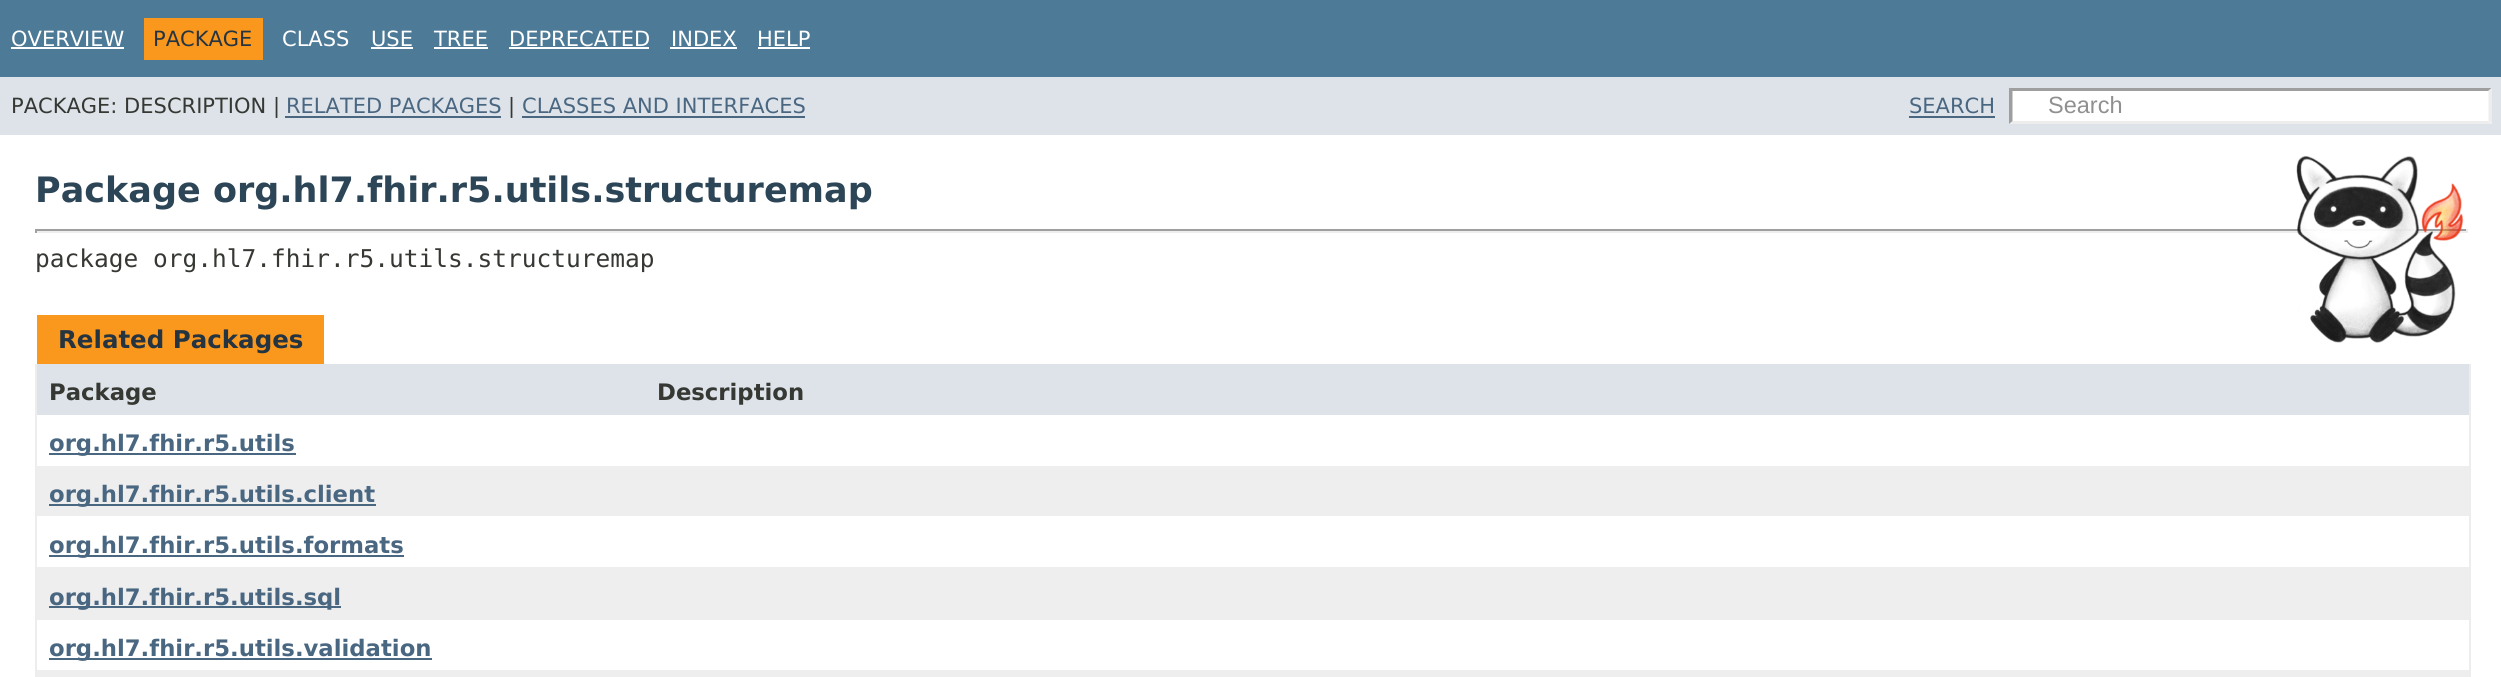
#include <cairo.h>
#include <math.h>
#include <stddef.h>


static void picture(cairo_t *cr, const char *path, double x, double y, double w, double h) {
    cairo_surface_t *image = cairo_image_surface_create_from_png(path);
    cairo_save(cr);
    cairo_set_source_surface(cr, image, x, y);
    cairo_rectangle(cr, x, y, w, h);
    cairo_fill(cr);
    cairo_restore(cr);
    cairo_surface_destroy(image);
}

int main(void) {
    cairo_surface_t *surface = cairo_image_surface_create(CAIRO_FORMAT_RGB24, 2501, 677);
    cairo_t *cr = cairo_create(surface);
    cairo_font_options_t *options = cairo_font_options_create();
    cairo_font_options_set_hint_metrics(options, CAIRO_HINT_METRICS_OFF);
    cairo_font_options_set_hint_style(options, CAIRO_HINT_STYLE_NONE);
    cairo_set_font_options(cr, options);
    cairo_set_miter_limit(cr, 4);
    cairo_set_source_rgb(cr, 1, 1, 1);
    cairo_paint(cr);
    cairo_set_source_rgb(cr, 0.302, 0.478, 0.592);
    cairo_rectangle(cr, 0, 0, 2501, 77);
    cairo_fill(cr);
    cairo_select_font_face(cr, "DejaVu Sans", CAIRO_FONT_SLANT_NORMAL, CAIRO_FONT_WEIGHT_NORMAL);
    cairo_set_font_size(cr, 21);
    cairo_set_source_rgb(cr, 1, 1, 1);
    cairo_move_to(cr, 11, 46);
    cairo_show_text(cr, "OVERVIEW");
    cairo_rectangle(cr, 11, 47, 113, 2);
    cairo_fill(cr);
    cairo_set_source_rgb(cr, 0.973, 0.596, 0.114);
    cairo_rectangle(cr, 144, 18, 119, 42);
    cairo_fill(cr);
    cairo_set_source_rgb(cr, 0.145, 0.204, 0.255);
    cairo_move_to(cr, 153, 46);
    cairo_show_text(cr, "PACKAGE");
    cairo_set_source_rgb(cr, 1, 1, 1);
    cairo_move_to(cr, 282, 46);
    cairo_show_text(cr, "CLASS");
    cairo_move_to(cr, 371, 46);
    cairo_show_text(cr, "USE");
    cairo_rectangle(cr, 371, 47, 42, 2);
    cairo_fill(cr);
    cairo_move_to(cr, 434, 46);
    cairo_show_text(cr, "TREE");
    cairo_rectangle(cr, 434, 47, 54, 2);
    cairo_fill(cr);
    cairo_move_to(cr, 509, 46);
    cairo_show_text(cr, "DEPRECATED");
    cairo_rectangle(cr, 509, 47, 140, 2);
    cairo_fill(cr);
    cairo_move_to(cr, 671, 46);
    cairo_show_text(cr, "INDEX");
    cairo_rectangle(cr, 670, 47, 67, 2);
    cairo_fill(cr);
    cairo_move_to(cr, 757, 46);
    cairo_show_text(cr, "HELP");
    cairo_rectangle(cr, 758, 47, 52, 2);
    cairo_fill(cr);
    cairo_set_source_rgb(cr, 0.871, 0.89, 0.914);
    cairo_rectangle(cr, 0, 77, 2501, 58);
    cairo_fill(cr);
    cairo_set_source_rgb(cr, 0.208, 0.22, 0.2);
    cairo_move_to(cr, 11, 113);
    cairo_show_text(cr, "PACKAGE: DESCRIPTION |");
    cairo_set_source_rgb(cr, 0.29, 0.404, 0.51);
    cairo_move_to(cr, 286, 113);
    cairo_show_text(cr, "RELATED PACKAGES");
    cairo_rectangle(cr, 285, 116, 216, 2);
    cairo_fill(cr);
    cairo_set_source_rgb(cr, 0.208, 0.22, 0.2);
    cairo_move_to(cr, 508, 113);
    cairo_show_text(cr, "|");
    cairo_set_source_rgb(cr, 0.29, 0.404, 0.51);
    cairo_move_to(cr, 522, 113);
    cairo_show_text(cr, "CLASSES AND INTERFACES");
    cairo_rectangle(cr, 522, 116, 283, 2);
    cairo_fill(cr);
    cairo_move_to(cr, 1909, 113);
    cairo_show_text(cr, "SEARCH");
    cairo_rectangle(cr, 1909, 116, 86, 2);
    cairo_fill(cr);
    cairo_set_source_rgb(cr, 1, 1, 1);
    cairo_rectangle(cr, 2009, 88, 483, 36);
    cairo_fill(cr);
    cairo_set_source_rgb(cr, 0.62, 0.62, 0.62);
    cairo_new_path(cr);
    cairo_move_to(cr, 2009, 88);
    cairo_line_to(cr, 2492, 88);
    cairo_line_to(cr, 2488, 91);
    cairo_line_to(cr, 2012, 91);
    cairo_close_path(cr);
    cairo_fill(cr);
    cairo_set_source_rgb(cr, 0.929, 0.929, 0.929);
    cairo_new_path(cr);
    cairo_move_to(cr, 2492, 87.5);
    cairo_line_to(cr, 2492, 124);
    cairo_line_to(cr, 2488.5, 121);
    cairo_line_to(cr, 2488.5, 91);
    cairo_close_path(cr);
    cairo_fill(cr);
    cairo_new_path(cr);
    cairo_move_to(cr, 2492, 124);
    cairo_line_to(cr, 2009, 124);
    cairo_line_to(cr, 2012, 121);
    cairo_line_to(cr, 2488, 121);
    cairo_close_path(cr);
    cairo_fill(cr);
    cairo_set_source_rgb(cr, 0.62, 0.62, 0.62);
    cairo_new_path(cr);
    cairo_move_to(cr, 2009, 124);
    cairo_line_to(cr, 2009, 87.5);
    cairo_line_to(cr, 2012.5, 91);
    cairo_line_to(cr, 2012.5, 121);
    cairo_close_path(cr);
    cairo_fill(cr);
    cairo_select_font_face(cr, "Liberation Sans", CAIRO_FONT_SLANT_NORMAL, CAIRO_FONT_WEIGHT_NORMAL);
    cairo_set_font_size(cr, 23.5);
    cairo_set_source_rgb(cr, 0.565, 0.565, 0.565);
    cairo_move_to(cr, 2048, 113);
    cairo_show_text(cr, "Search");
    cairo_select_font_face(cr, "DejaVu Sans", CAIRO_FONT_SLANT_NORMAL, CAIRO_FONT_WEIGHT_BOLD);
    cairo_set_font_size(cr, 35);
    cairo_set_source_rgb(cr, 0.173, 0.271, 0.341);
    cairo_move_to(cr, 35, 202);
    cairo_show_text(cr, "Package org.hl7.fhir.r5.utils.structuremap");
    cairo_set_source_rgb(cr, 0.624, 0.624, 0.624);
    cairo_rectangle(cr, 35, 229, 2433, 2);
    cairo_fill(cr);
    cairo_set_source_rgb(cr, 0.933, 0.933, 0.933);
    cairo_rectangle(cr, 2466, 229, 2, 4);
    cairo_fill(cr);
    cairo_rectangle(cr, 35, 231, 2433, 2);
    cairo_fill(cr);
    picture(cr, "img1.png", 2296, 155, 168, 188);
    cairo_set_source_rgb(cr, 0.624, 0.624, 0.624);
    cairo_rectangle(cr, 35, 229, 2, 4);
    cairo_fill(cr);
    cairo_select_font_face(cr, "DejaVu Sans Mono", CAIRO_FONT_SLANT_NORMAL, CAIRO_FONT_WEIGHT_NORMAL);
    cairo_set_font_size(cr, 24.5);
    cairo_set_source_rgb(cr, 0.208, 0.22, 0.2);
    cairo_move_to(cr, 35, 267);
    cairo_show_text(cr, "package org.hl7.fhir.r5.utils.structuremap");
    cairo_set_source_rgb(cr, 0.973, 0.596, 0.114);
    cairo_rectangle(cr, 37, 315, 287, 49);
    cairo_fill(cr);
    cairo_select_font_face(cr, "DejaVu Sans", CAIRO_FONT_SLANT_NORMAL, CAIRO_FONT_WEIGHT_BOLD);
    cairo_set_source_rgb(cr, 0.145, 0.204, 0.255);
    cairo_move_to(cr, 58, 348);
    cairo_show_text(cr, "Related Packages");
    cairo_set_source_rgb(cr, 0.929, 0.929, 0.929);
    cairo_rectangle(cr, 2469, 364, 2, 313);
    cairo_fill(cr);
    cairo_rectangle(cr, 35, 364, 2, 313);
    cairo_fill(cr);
    cairo_set_source_rgb(cr, 0.871, 0.89, 0.914);
    cairo_rectangle(cr, 37, 364, 2432, 51);
    cairo_fill(cr);
    cairo_set_font_size(cr, 22.75);
    cairo_set_source_rgb(cr, 0.208, 0.22, 0.2);
    cairo_move_to(cr, 49, 400);
    cairo_show_text(cr, "Package");
    cairo_move_to(cr, 657, 400);
    cairo_show_text(cr, "Description");
    cairo_set_source_rgb(cr, 0.29, 0.404, 0.51);
    cairo_rectangle(cr, 49, 453, 247, 2);
    cairo_fill(cr);
    cairo_move_to(cr, 49, 451);
    cairo_show_text(cr, "org.hl7.fhir.r5.utils");
    cairo_set_source_rgb(cr, 0.933, 0.933, 0.937);
    cairo_rectangle(cr, 37, 466, 2432, 50);
    cairo_fill(cr);
    cairo_set_source_rgb(cr, 0.29, 0.404, 0.51);
    cairo_rectangle(cr, 49, 504, 327, 2);
    cairo_fill(cr);
    cairo_move_to(cr, 49, 502);
    cairo_show_text(cr, "org.hl7.fhir.r5.utils.client");
    cairo_rectangle(cr, 49, 555, 355, 2);
    cairo_fill(cr);
    cairo_move_to(cr, 49, 553);
    cairo_show_text(cr, "org.hl7.fhir.r5.utils.formats");
    cairo_set_source_rgb(cr, 0.933, 0.933, 0.937);
    cairo_rectangle(cr, 37, 567, 2432, 53);
    cairo_fill(cr);
    cairo_set_source_rgb(cr, 0.29, 0.404, 0.51);
    cairo_rectangle(cr, 49, 606, 292, 2);
    cairo_fill(cr);
    cairo_move_to(cr, 49, 605);
    cairo_show_text(cr, "org.hl7.fhir.r5.utils.sql");
    cairo_rectangle(cr, 49, 658, 383, 2);
    cairo_fill(cr);
    cairo_move_to(cr, 49, 656);
    cairo_show_text(cr, "org.hl7.fhir.r5.utils.validation");
    cairo_set_source_rgb(cr, 0.933, 0.933, 0.937);
    cairo_rectangle(cr, 37, 670, 2432, 7);
    cairo_fill(cr);
    cairo_surface_write_to_png(surface, "page.png");
    cairo_font_options_destroy(options);
    cairo_destroy(cr);
    cairo_surface_destroy(surface);
    return 0;
}
